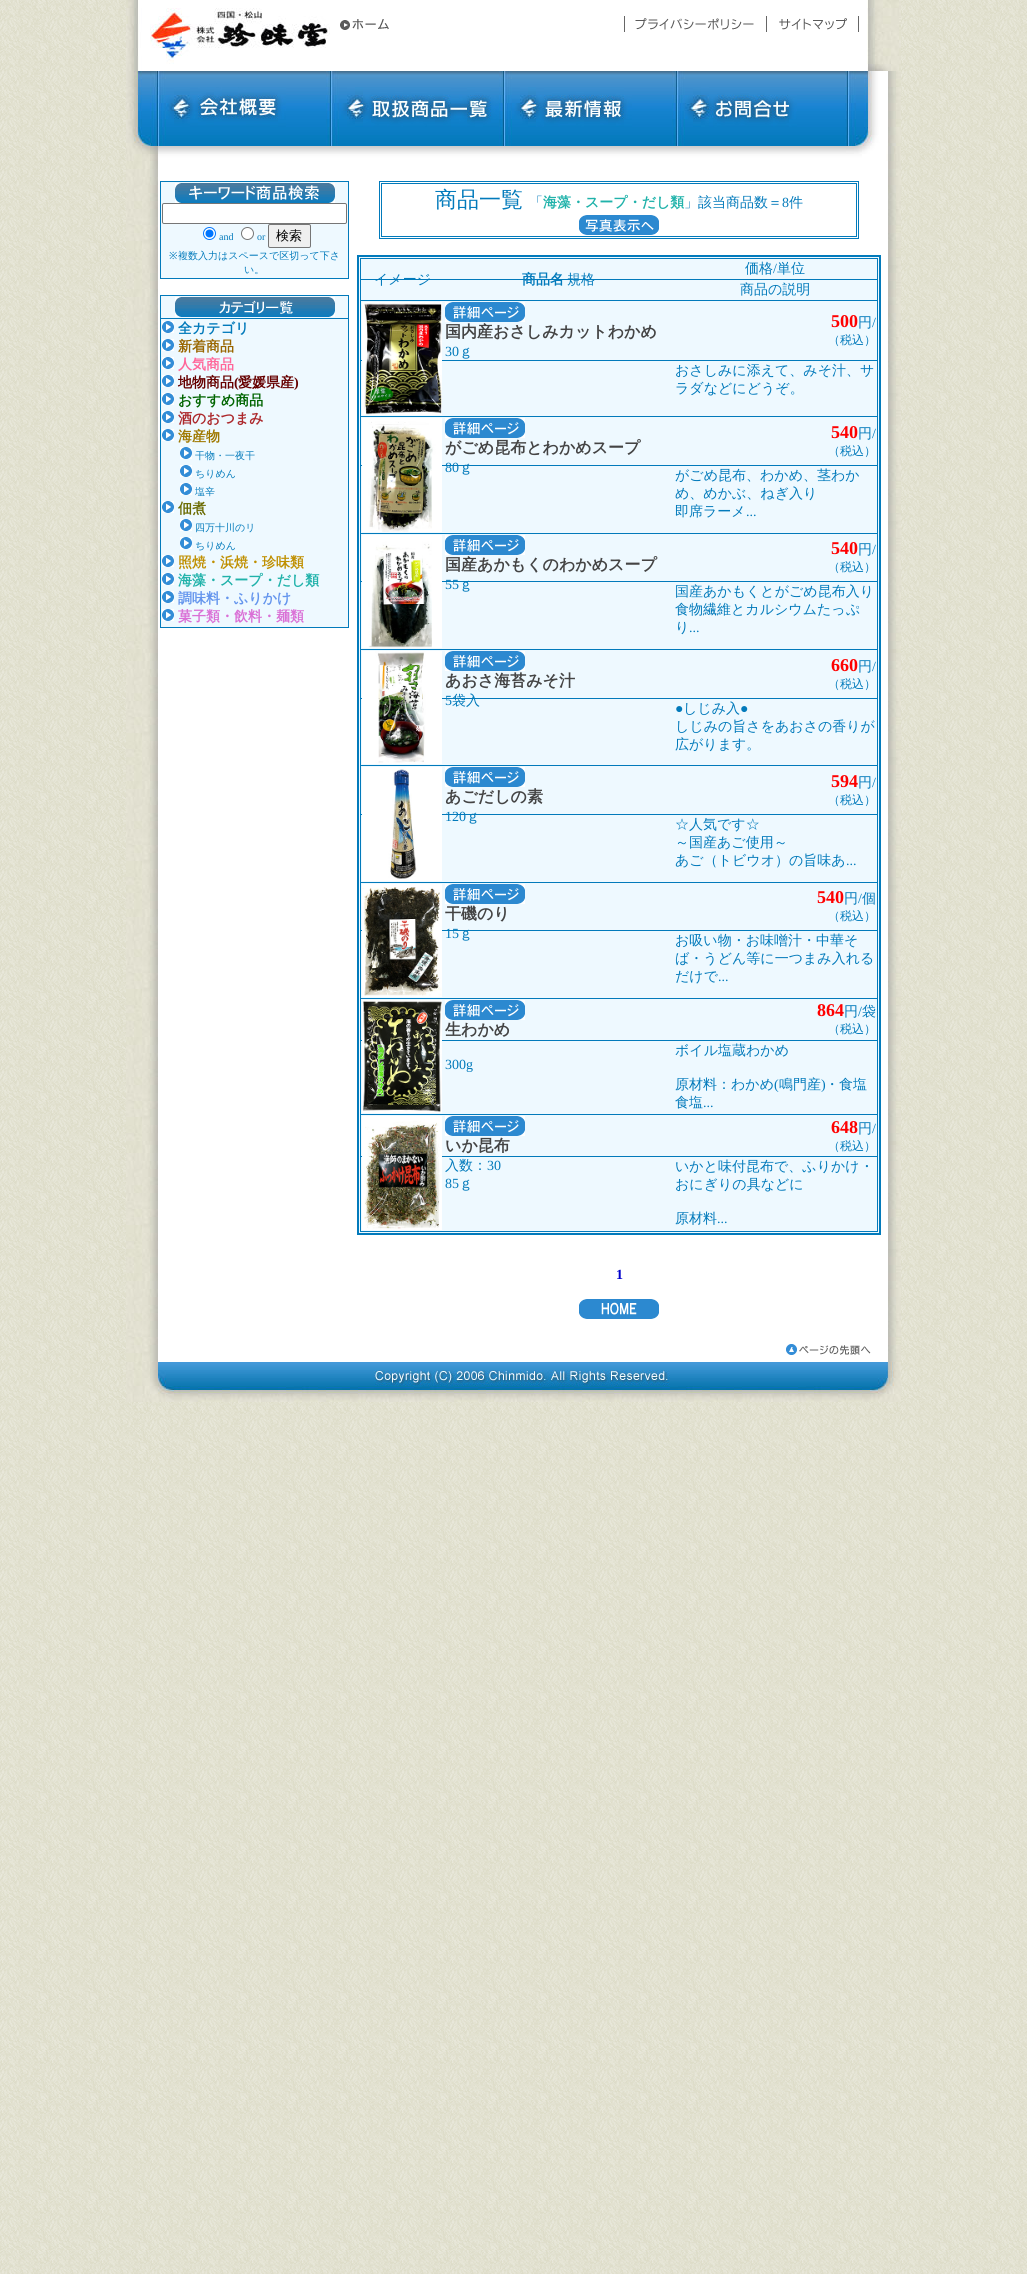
#include <cairo.h>
#include <math.h>
#include <stddef.h>


static void round_rect(cairo_t *cr, double x, double y, double w, double h, double r) {
    cairo_new_sub_path(cr);
    cairo_arc(cr, x + w - r, y + h - r, r, 0, M_PI / 2);
    cairo_arc(cr, x + r, y + h - r, r, M_PI / 2, M_PI);
    cairo_arc(cr, x + r, y + r, r, M_PI, 1.5 * M_PI);
    cairo_arc(cr, x + w - r, y + r, r, 1.5 * M_PI, 2 * M_PI);
    cairo_close_path(cr);
}

static void picture(cairo_t *cr, const char *path, double x, double y, double w, double h) {
    cairo_surface_t *image = cairo_image_surface_create_from_png(path);
    cairo_save(cr);
    cairo_set_source_surface(cr, image, x, y);
    cairo_rectangle(cr, x, y, w, h);
    cairo_fill(cr);
    cairo_restore(cr);
    cairo_surface_destroy(image);
}

int main(void) {
    cairo_surface_t *surface = cairo_image_surface_create(CAIRO_FORMAT_RGB24, 1027, 2274);
    cairo_t *cr = cairo_create(surface);
    cairo_font_options_t *options = cairo_font_options_create();
    cairo_font_options_set_hint_metrics(options, CAIRO_HINT_METRICS_OFF);
    cairo_font_options_set_hint_style(options, CAIRO_HINT_STYLE_NONE);
    cairo_set_font_options(cr, options);
    cairo_set_miter_limit(cr, 4);
    cairo_set_source_rgb(cr, 1, 1, 1);
    cairo_paint(cr);
    picture(cr, "img1.png", 0, 0, 1027, 2274);
    picture(cr, "img2.png", 126, 0, 204, 71);
    cairo_set_source_rgb(cr, 1, 1, 1);
    cairo_rectangle(cr, 330, 0, 529, 71);
    cairo_fill(cr);
    picture(cr, "img3.png", 340, 19, 49, 11);
    picture(cr, "img4.png", 859, 0, 42, 71);
    picture(cr, "img5.png", 624, 16, 143, 16);
    picture(cr, "img6.png", 779, 16, 80, 16);
    picture(cr, "img7.png", 126, 71, 32, 75);
    picture(cr, "img8.png", 158, 71, 173, 75);
    picture(cr, "img9.png", 331, 71, 173, 75);
    picture(cr, "img10.png", 504, 71, 173, 75);
    picture(cr, "img11.png", 677, 71, 171, 75);
    picture(cr, "img12.png", 848, 71, 53, 75);
    picture(cr, "img13.png", 126, 146, 775, 15);
    picture(cr, "img14.png", 126, 161, 32, 1201);
    cairo_rectangle(cr, 158, 161, 730, 1201);
    cairo_fill(cr);
    cairo_set_source_rgb(cr, 0.008, 0.478, 0.733);
    cairo_rectangle(cr, 160, 181, 189, 98);
    cairo_fill(cr);
    cairo_set_source_rgb(cr, 0.933, 0.976, 1);
    cairo_rectangle(cr, 161, 182, 187, 96);
    cairo_fill(cr);
    picture(cr, "img15.png", 175, 183, 160, 20);
    cairo_set_source_rgb(cr, 1, 1, 1);
    round_rect(cr, 162.5, 203.5, 184, 20, 1.5);
    cairo_fill_preserve(cr);
    cairo_set_source_rgb(cr, 0.463, 0.463, 0.463);
    cairo_set_line_width(cr, 1);
    cairo_stroke(cr);
    cairo_set_source_rgb(cr, 1, 1, 1);
    cairo_arc(cr, 209.5, 233.5, 6, 0, 2 * M_PI);
    cairo_fill_preserve(cr);
    cairo_set_source_rgb(cr, 0, 0.459, 1);
    cairo_stroke(cr);
    cairo_arc(cr, 209.5, 233.5, 4, 0, 2 * M_PI);
    cairo_fill(cr);
    cairo_select_font_face(cr, "Liberation Serif", CAIRO_FONT_SLANT_NORMAL, CAIRO_FONT_WEIGHT_NORMAL);
    cairo_set_font_size(cr, 10);
    cairo_set_source_rgb(cr, 0.008, 0.478, 0.733);
    cairo_move_to(cr, 219, 240);
    cairo_show_text(cr, "and");
    cairo_set_source_rgb(cr, 1, 1, 1);
    cairo_new_path(cr);
    cairo_arc(cr, 247.5, 233.5, 6, 0, 2 * M_PI);
    cairo_fill_preserve(cr);
    cairo_set_source_rgb(cr, 0.463, 0.463, 0.463);
    cairo_stroke(cr);
    cairo_set_source_rgb(cr, 0.008, 0.478, 0.733);
    cairo_move_to(cr, 257, 240);
    cairo_show_text(cr, "or");
    cairo_set_source_rgb(cr, 0.937, 0.937, 0.937);
    round_rect(cr, 268.5, 224.5, 42, 23, 1.5);
    cairo_fill_preserve(cr);
    cairo_set_source_rgb(cr, 0.463, 0.463, 0.463);
    cairo_stroke(cr);
    cairo_select_font_face(cr, "WenQuanYi Zen Hei Medium", CAIRO_FONT_SLANT_NORMAL, CAIRO_FONT_WEIGHT_NORMAL);
    cairo_set_font_size(cr, 13);
    cairo_set_source_rgb(cr, 0, 0, 0);
    cairo_move_to(cr, 276, 240);
    cairo_show_text(cr, "検索");
    cairo_select_font_face(cr, "Noto Sans", CAIRO_FONT_SLANT_NORMAL, CAIRO_FONT_WEIGHT_NORMAL);
    cairo_set_font_size(cr, 10);
    cairo_set_source_rgb(cr, 0.008, 0.478, 0.733);
    cairo_move_to(cr, 169, 259);
    cairo_show_text(cr, "※");
    cairo_select_font_face(cr, "WenQuanYi Zen Hei Medium", CAIRO_FONT_SLANT_NORMAL, CAIRO_FONT_WEIGHT_NORMAL);
    cairo_move_to(cr, 178, 259);
    cairo_show_text(cr, "複数入力はスペースで区切って下さ");
    cairo_move_to(cr, 244, 273);
    cairo_show_text(cr, "い。");
    cairo_rectangle(cr, 160, 295, 189, 333);
    cairo_fill(cr);
    cairo_set_source_rgb(cr, 0.933, 0.976, 1);
    cairo_rectangle(cr, 161, 296, 187, 22);
    cairo_fill(cr);
    picture(cr, "img16.png", 175, 297, 160, 20);
    cairo_rectangle(cr, 161, 319, 187, 308);
    cairo_fill(cr);
    picture(cr, "img17.png", 162, 321, 12, 12);
    cairo_select_font_face(cr, "WenQuanYi Zen Hei", CAIRO_FONT_SLANT_NORMAL, CAIRO_FONT_WEIGHT_BOLD);
    cairo_set_font_size(cr, 14);
    cairo_set_source_rgb(cr, 0.008, 0.478, 0.733);
    cairo_move_to(cr, 178, 333);
    cairo_show_text(cr, "全カテゴリ");
    picture(cr, "img17.png", 162, 339, 12, 12);
    cairo_set_source_rgb(cr, 0.6, 0.4, 0);
    cairo_move_to(cr, 178, 351);
    cairo_show_text(cr, "新着商品");
    picture(cr, "img17.png", 162, 357, 12, 12);
    cairo_set_source_rgb(cr, 1, 0.4, 0.6);
    cairo_move_to(cr, 178, 369);
    cairo_show_text(cr, "人気商品");
    picture(cr, "img17.png", 162, 375, 12, 12);
    cairo_set_source_rgb(cr, 0.4, 0, 0);
    cairo_move_to(cr, 178, 387);
    cairo_show_text(cr, "地物商品");
    cairo_select_font_face(cr, "Liberation Serif", CAIRO_FONT_SLANT_NORMAL, CAIRO_FONT_WEIGHT_BOLD);
    cairo_move_to(cr, 234, 387);
    cairo_show_text(cr, "(");
    cairo_select_font_face(cr, "WenQuanYi Zen Hei", CAIRO_FONT_SLANT_NORMAL, CAIRO_FONT_WEIGHT_BOLD);
    cairo_move_to(cr, 238, 387);
    cairo_show_text(cr, "愛媛県産");
    cairo_select_font_face(cr, "Liberation Serif", CAIRO_FONT_SLANT_NORMAL, CAIRO_FONT_WEIGHT_BOLD);
    cairo_move_to(cr, 294, 387);
    cairo_show_text(cr, ")");
    picture(cr, "img17.png", 162, 393, 12, 12);
    cairo_select_font_face(cr, "WenQuanYi Zen Hei", CAIRO_FONT_SLANT_NORMAL, CAIRO_FONT_WEIGHT_BOLD);
    cairo_set_source_rgb(cr, 0, 0.392, 0);
    cairo_move_to(cr, 178, 405);
    cairo_show_text(cr, "おすすめ商品");
    picture(cr, "img17.png", 162, 411, 12, 12);
    cairo_set_source_rgb(cr, 0.675, 0.157, 0.173);
    cairo_move_to(cr, 178, 423);
    cairo_show_text(cr, "酒のおつまみ");
    picture(cr, "img17.png", 162, 429, 12, 12);
    cairo_set_source_rgb(cr, 0.624, 0.471, 0);
    cairo_move_to(cr, 178, 441);
    cairo_show_text(cr, "海産物");
    picture(cr, "img17.png", 180, 447, 12, 12);
    cairo_select_font_face(cr, "WenQuanYi Zen Hei Medium", CAIRO_FONT_SLANT_NORMAL, CAIRO_FONT_WEIGHT_NORMAL);
    cairo_set_font_size(cr, 10);
    cairo_set_source_rgb(cr, 0.008, 0.478, 0.733);
    cairo_move_to(cr, 195, 459);
    cairo_show_text(cr, "干物・一夜干");
    picture(cr, "img17.png", 180, 465, 12, 12);
    cairo_move_to(cr, 195, 477);
    cairo_show_text(cr, "ちりめん");
    picture(cr, "img17.png", 180, 483, 12, 12);
    cairo_move_to(cr, 195, 495);
    cairo_show_text(cr, "塩辛");
    picture(cr, "img17.png", 162, 501, 12, 12);
    cairo_select_font_face(cr, "WenQuanYi Zen Hei", CAIRO_FONT_SLANT_NORMAL, CAIRO_FONT_WEIGHT_BOLD);
    cairo_set_font_size(cr, 14);
    cairo_set_source_rgb(cr, 0.416, 0.416, 0);
    cairo_move_to(cr, 178, 513);
    cairo_show_text(cr, "佃煮");
    picture(cr, "img17.png", 180, 519, 12, 12);
    cairo_select_font_face(cr, "WenQuanYi Zen Hei Medium", CAIRO_FONT_SLANT_NORMAL, CAIRO_FONT_WEIGHT_NORMAL);
    cairo_set_font_size(cr, 10);
    cairo_set_source_rgb(cr, 0.008, 0.478, 0.733);
    cairo_move_to(cr, 195, 531);
    cairo_show_text(cr, "四万十川のリ");
    picture(cr, "img17.png", 180, 537, 12, 12);
    cairo_move_to(cr, 195, 549);
    cairo_show_text(cr, "ちりめん");
    picture(cr, "img17.png", 162, 555, 12, 12);
    cairo_select_font_face(cr, "WenQuanYi Zen Hei", CAIRO_FONT_SLANT_NORMAL, CAIRO_FONT_WEIGHT_BOLD);
    cairo_set_font_size(cr, 14);
    cairo_set_source_rgb(cr, 0.749, 0.561, 0);
    cairo_move_to(cr, 178, 567);
    cairo_show_text(cr, "照焼・浜焼・珍味類");
    picture(cr, "img17.png", 162, 573, 12, 12);
    cairo_set_source_rgb(cr, 0.125, 0.698, 0.667);
    cairo_move_to(cr, 178, 585);
    cairo_show_text(cr, "海藻・スープ・だし類");
    picture(cr, "img17.png", 162, 591, 12, 12);
    cairo_set_source_rgb(cr, 0.392, 0.584, 0.929);
    cairo_move_to(cr, 178, 603);
    cairo_show_text(cr, "調味料・ふりかけ");
    picture(cr, "img17.png", 162, 609, 12, 12);
    cairo_set_source_rgb(cr, 0.855, 0.439, 0.839);
    cairo_move_to(cr, 178, 621);
    cairo_show_text(cr, "菓子類・飲料・麺類");
    cairo_rectangle(cr, 379.5, 181.5, 479, 57);
    cairo_set_source_rgb(cr, 0.008, 0.478, 0.733);
    cairo_stroke(cr);
    cairo_rectangle(cr, 381.5, 183.5, 475, 53);
    cairo_stroke(cr);
    cairo_select_font_face(cr, "WenQuanYi Zen Hei Medium", CAIRO_FONT_SLANT_NORMAL, CAIRO_FONT_WEIGHT_NORMAL);
    cairo_set_font_size(cr, 22);
    cairo_move_to(cr, 435, 207);
    cairo_show_text(cr, "商品一覧");
    cairo_set_font_size(cr, 14);
    cairo_move_to(cr, 529, 207);
    cairo_show_text(cr, "「");
    cairo_select_font_face(cr, "WenQuanYi Zen Hei", CAIRO_FONT_SLANT_NORMAL, CAIRO_FONT_WEIGHT_BOLD);
    cairo_set_source_rgb(cr, 0.125, 0.698, 0.667);
    cairo_move_to(cr, 543, 207);
    cairo_show_text(cr, "海藻・スープ・だし類");
    cairo_select_font_face(cr, "WenQuanYi Zen Hei Medium", CAIRO_FONT_SLANT_NORMAL, CAIRO_FONT_WEIGHT_NORMAL);
    cairo_set_source_rgb(cr, 0.008, 0.478, 0.733);
    cairo_move_to(cr, 684, 207);
    cairo_show_text(cr, "」該当商品数＝");
    cairo_select_font_face(cr, "Liberation Serif", CAIRO_FONT_SLANT_NORMAL, CAIRO_FONT_WEIGHT_NORMAL);
    cairo_move_to(cr, 782, 207);
    cairo_show_text(cr, "8");
    cairo_select_font_face(cr, "WenQuanYi Zen Hei Medium", CAIRO_FONT_SLANT_NORMAL, CAIRO_FONT_WEIGHT_NORMAL);
    cairo_move_to(cr, 789, 207);
    cairo_show_text(cr, "件");
    picture(cr, "img18.png", 579, 215, 80, 20);
    cairo_rectangle(cr, 357, 255, 524, 980);
    cairo_fill(cr);
    cairo_set_source_rgb(cr, 0.933, 0.976, 1);
    cairo_rectangle(cr, 359, 257, 520, 976);
    cairo_fill(cr);
    cairo_set_source_rgb(cr, 0.008, 0.478, 0.733);
    cairo_rectangle(cr, 360, 258, 518, 974);
    cairo_fill(cr);
    cairo_set_source_rgb(cr, 0.933, 0.976, 1);
    cairo_rectangle(cr, 361, 259, 516, 20);
    cairo_fill(cr);
    cairo_set_source_rgb(cr, 0.008, 0.478, 0.733);
    cairo_move_to(cr, 745, 273);
    cairo_show_text(cr, "価格");
    cairo_select_font_face(cr, "Liberation Serif", CAIRO_FONT_SLANT_NORMAL, CAIRO_FONT_WEIGHT_NORMAL);
    cairo_move_to(cr, 773, 273);
    cairo_show_text(cr, "/");
    cairo_select_font_face(cr, "WenQuanYi Zen Hei Medium", CAIRO_FONT_SLANT_NORMAL, CAIRO_FONT_WEIGHT_NORMAL);
    cairo_move_to(cr, 777, 273);
    cairo_show_text(cr, "単位");
    cairo_set_source_rgb(cr, 0.933, 0.976, 1);
    cairo_rectangle(cr, 361, 280, 516, 20);
    cairo_fill(cr);
    cairo_set_source_rgb(cr, 0.008, 0.478, 0.733);
    cairo_move_to(cr, 374, 284);
    cairo_show_text(cr, "イメージ");
    cairo_select_font_face(cr, "WenQuanYi Zen Hei", CAIRO_FONT_SLANT_NORMAL, CAIRO_FONT_WEIGHT_BOLD);
    cairo_move_to(cr, 522, 284);
    cairo_show_text(cr, "商品名");
    cairo_select_font_face(cr, "WenQuanYi Zen Hei Medium", CAIRO_FONT_SLANT_NORMAL, CAIRO_FONT_WEIGHT_NORMAL);
    cairo_move_to(cr, 567, 284);
    cairo_show_text(cr, "規格");
    cairo_move_to(cr, 740, 294);
    cairo_show_text(cr, "商品の説明");
    cairo_set_source_rgb(cr, 0.933, 0.976, 1);
    cairo_rectangle(cr, 361, 301, 516, 59);
    cairo_fill(cr);
    cairo_rectangle(cr, 361, 361, 516, 55);
    cairo_fill(cr);
    picture(cr, "img19.png", 362, 302, 80, 113);
    picture(cr, "img20.png", 445, 302, 80, 20);
    cairo_select_font_face(cr, "WenQuanYi Zen Hei", CAIRO_FONT_SLANT_NORMAL, CAIRO_FONT_WEIGHT_BOLD);
    cairo_set_font_size(cr, 16);
    cairo_set_source_rgb(cr, 0.267, 0.267, 0.267);
    cairo_move_to(cr, 445, 337);
    cairo_show_text(cr, "国内産おさしみカットわかめ");
    cairo_select_font_face(cr, "Liberation Serif", CAIRO_FONT_SLANT_NORMAL, CAIRO_FONT_WEIGHT_NORMAL);
    cairo_set_font_size(cr, 14);
    cairo_set_source_rgb(cr, 0.008, 0.478, 0.733);
    cairo_move_to(cr, 445, 356);
    cairo_show_text(cr, "30");
    cairo_select_font_face(cr, "WenQuanYi Zen Hei Medium", CAIRO_FONT_SLANT_NORMAL, CAIRO_FONT_WEIGHT_NORMAL);
    cairo_move_to(cr, 459, 356);
    cairo_show_text(cr, "ｇ");
    cairo_select_font_face(cr, "Liberation Serif", CAIRO_FONT_SLANT_NORMAL, CAIRO_FONT_WEIGHT_BOLD);
    cairo_set_font_size(cr, 18);
    cairo_set_source_rgb(cr, 1, 0, 0);
    cairo_move_to(cr, 831, 327);
    cairo_show_text(cr, "500");
    cairo_select_font_face(cr, "WenQuanYi Zen Hei Medium", CAIRO_FONT_SLANT_NORMAL, CAIRO_FONT_WEIGHT_NORMAL);
    cairo_set_font_size(cr, 14);
    cairo_set_source_rgb(cr, 0.008, 0.478, 0.733);
    cairo_move_to(cr, 858, 327);
    cairo_show_text(cr, "円");
    cairo_select_font_face(cr, "Liberation Serif", CAIRO_FONT_SLANT_NORMAL, CAIRO_FONT_WEIGHT_NORMAL);
    cairo_move_to(cr, 872, 327);
    cairo_show_text(cr, "/");
    cairo_select_font_face(cr, "WenQuanYi Zen Hei Medium", CAIRO_FONT_SLANT_NORMAL, CAIRO_FONT_WEIGHT_NORMAL);
    cairo_set_font_size(cr, 12);
    cairo_move_to(cr, 828, 344);
    cairo_show_text(cr, "（税込）");
    cairo_set_font_size(cr, 14);
    cairo_move_to(cr, 675, 375);
    cairo_show_text(cr, "おさしみに添えて、みそ汁、サ");
    cairo_move_to(cr, 675, 393);
    cairo_show_text(cr, "ラダなどにどうぞ。");
    cairo_set_source_rgb(cr, 0.933, 0.976, 1);
    cairo_rectangle(cr, 361, 417, 516, 48);
    cairo_fill(cr);
    cairo_rectangle(cr, 361, 466, 516, 67);
    cairo_fill(cr);
    picture(cr, "img21.png", 362, 418, 80, 114);
    picture(cr, "img20.png", 445, 418, 80, 20);
    cairo_select_font_face(cr, "WenQuanYi Zen Hei", CAIRO_FONT_SLANT_NORMAL, CAIRO_FONT_WEIGHT_BOLD);
    cairo_set_font_size(cr, 16);
    cairo_set_source_rgb(cr, 0.267, 0.267, 0.267);
    cairo_move_to(cr, 445, 453);
    cairo_show_text(cr, "がごめ昆布とわかめスープ");
    cairo_select_font_face(cr, "Liberation Serif", CAIRO_FONT_SLANT_NORMAL, CAIRO_FONT_WEIGHT_NORMAL);
    cairo_set_font_size(cr, 14);
    cairo_set_source_rgb(cr, 0.008, 0.478, 0.733);
    cairo_move_to(cr, 445, 472);
    cairo_show_text(cr, "80");
    cairo_select_font_face(cr, "WenQuanYi Zen Hei Medium", CAIRO_FONT_SLANT_NORMAL, CAIRO_FONT_WEIGHT_NORMAL);
    cairo_move_to(cr, 459, 472);
    cairo_show_text(cr, "ｇ");
    cairo_select_font_face(cr, "Liberation Serif", CAIRO_FONT_SLANT_NORMAL, CAIRO_FONT_WEIGHT_BOLD);
    cairo_set_font_size(cr, 18);
    cairo_set_source_rgb(cr, 1, 0, 0);
    cairo_move_to(cr, 831, 438);
    cairo_show_text(cr, "540");
    cairo_select_font_face(cr, "WenQuanYi Zen Hei Medium", CAIRO_FONT_SLANT_NORMAL, CAIRO_FONT_WEIGHT_NORMAL);
    cairo_set_font_size(cr, 14);
    cairo_set_source_rgb(cr, 0.008, 0.478, 0.733);
    cairo_move_to(cr, 858, 438);
    cairo_show_text(cr, "円");
    cairo_select_font_face(cr, "Liberation Serif", CAIRO_FONT_SLANT_NORMAL, CAIRO_FONT_WEIGHT_NORMAL);
    cairo_move_to(cr, 872, 438);
    cairo_show_text(cr, "/");
    cairo_select_font_face(cr, "WenQuanYi Zen Hei Medium", CAIRO_FONT_SLANT_NORMAL, CAIRO_FONT_WEIGHT_NORMAL);
    cairo_set_font_size(cr, 12);
    cairo_move_to(cr, 828, 455);
    cairo_show_text(cr, "（税込）");
    cairo_set_font_size(cr, 14);
    cairo_move_to(cr, 675, 480);
    cairo_show_text(cr, "がごめ昆布、わかめ、茎わか");
    cairo_move_to(cr, 675, 498);
    cairo_show_text(cr, "め、めかぶ、ねぎ入り");
    cairo_move_to(cr, 675, 516);
    cairo_show_text(cr, "即席ラーメ");
    cairo_select_font_face(cr, "Liberation Serif", CAIRO_FONT_SLANT_NORMAL, CAIRO_FONT_WEIGHT_NORMAL);
    cairo_move_to(cr, 746, 516);
    cairo_show_text(cr, "...");
    cairo_set_source_rgb(cr, 0.933, 0.976, 1);
    cairo_rectangle(cr, 361, 534, 516, 47);
    cairo_fill(cr);
    cairo_rectangle(cr, 361, 582, 516, 67);
    cairo_fill(cr);
    picture(cr, "img22.png", 362, 535, 80, 113);
    picture(cr, "img20.png", 445, 535, 80, 20);
    cairo_select_font_face(cr, "WenQuanYi Zen Hei", CAIRO_FONT_SLANT_NORMAL, CAIRO_FONT_WEIGHT_BOLD);
    cairo_set_font_size(cr, 16);
    cairo_set_source_rgb(cr, 0.267, 0.267, 0.267);
    cairo_move_to(cr, 445, 570);
    cairo_show_text(cr, "国産あかもくのわかめスープ");
    cairo_select_font_face(cr, "Liberation Serif", CAIRO_FONT_SLANT_NORMAL, CAIRO_FONT_WEIGHT_NORMAL);
    cairo_set_font_size(cr, 14);
    cairo_set_source_rgb(cr, 0.008, 0.478, 0.733);
    cairo_move_to(cr, 445, 589);
    cairo_show_text(cr, "55");
    cairo_select_font_face(cr, "WenQuanYi Zen Hei Medium", CAIRO_FONT_SLANT_NORMAL, CAIRO_FONT_WEIGHT_NORMAL);
    cairo_move_to(cr, 459, 589);
    cairo_show_text(cr, "ｇ");
    cairo_select_font_face(cr, "Liberation Serif", CAIRO_FONT_SLANT_NORMAL, CAIRO_FONT_WEIGHT_BOLD);
    cairo_set_font_size(cr, 18);
    cairo_set_source_rgb(cr, 1, 0, 0);
    cairo_move_to(cr, 831, 554);
    cairo_show_text(cr, "540");
    cairo_select_font_face(cr, "WenQuanYi Zen Hei Medium", CAIRO_FONT_SLANT_NORMAL, CAIRO_FONT_WEIGHT_NORMAL);
    cairo_set_font_size(cr, 14);
    cairo_set_source_rgb(cr, 0.008, 0.478, 0.733);
    cairo_move_to(cr, 858, 554);
    cairo_show_text(cr, "円");
    cairo_select_font_face(cr, "Liberation Serif", CAIRO_FONT_SLANT_NORMAL, CAIRO_FONT_WEIGHT_NORMAL);
    cairo_move_to(cr, 872, 554);
    cairo_show_text(cr, "/");
    cairo_select_font_face(cr, "WenQuanYi Zen Hei Medium", CAIRO_FONT_SLANT_NORMAL, CAIRO_FONT_WEIGHT_NORMAL);
    cairo_set_font_size(cr, 12);
    cairo_move_to(cr, 828, 571);
    cairo_show_text(cr, "（税込）");
    cairo_set_font_size(cr, 14);
    cairo_move_to(cr, 675, 596);
    cairo_show_text(cr, "国産あかもくとがごめ昆布入り");
    cairo_move_to(cr, 675, 614);
    cairo_show_text(cr, "食物繊維とカルシウムたっぷ");
    cairo_move_to(cr, 675, 632);
    cairo_show_text(cr, "り");
    cairo_select_font_face(cr, "Liberation Serif", CAIRO_FONT_SLANT_NORMAL, CAIRO_FONT_WEIGHT_NORMAL);
    cairo_move_to(cr, 689, 632);
    cairo_show_text(cr, "...");
    cairo_set_source_rgb(cr, 0.933, 0.976, 1);
    cairo_rectangle(cr, 361, 650, 516, 48);
    cairo_fill(cr);
    cairo_rectangle(cr, 361, 699, 516, 66);
    cairo_fill(cr);
    picture(cr, "img23.png", 362, 651, 80, 113);
    picture(cr, "img20.png", 445, 651, 80, 20);
    cairo_select_font_face(cr, "WenQuanYi Zen Hei", CAIRO_FONT_SLANT_NORMAL, CAIRO_FONT_WEIGHT_BOLD);
    cairo_set_font_size(cr, 16);
    cairo_set_source_rgb(cr, 0.267, 0.267, 0.267);
    cairo_move_to(cr, 445, 686);
    cairo_show_text(cr, "あおさ海苔みそ汁");
    cairo_select_font_face(cr, "Liberation Serif", CAIRO_FONT_SLANT_NORMAL, CAIRO_FONT_WEIGHT_NORMAL);
    cairo_set_font_size(cr, 14);
    cairo_set_source_rgb(cr, 0.008, 0.478, 0.733);
    cairo_move_to(cr, 445, 705);
    cairo_show_text(cr, "5");
    cairo_select_font_face(cr, "WenQuanYi Zen Hei Medium", CAIRO_FONT_SLANT_NORMAL, CAIRO_FONT_WEIGHT_NORMAL);
    cairo_move_to(cr, 452, 705);
    cairo_show_text(cr, "袋入");
    cairo_select_font_face(cr, "Liberation Serif", CAIRO_FONT_SLANT_NORMAL, CAIRO_FONT_WEIGHT_BOLD);
    cairo_set_font_size(cr, 18);
    cairo_set_source_rgb(cr, 1, 0, 0);
    cairo_move_to(cr, 831, 671);
    cairo_show_text(cr, "660");
    cairo_select_font_face(cr, "WenQuanYi Zen Hei Medium", CAIRO_FONT_SLANT_NORMAL, CAIRO_FONT_WEIGHT_NORMAL);
    cairo_set_font_size(cr, 14);
    cairo_set_source_rgb(cr, 0.008, 0.478, 0.733);
    cairo_move_to(cr, 858, 671);
    cairo_show_text(cr, "円");
    cairo_select_font_face(cr, "Liberation Serif", CAIRO_FONT_SLANT_NORMAL, CAIRO_FONT_WEIGHT_NORMAL);
    cairo_move_to(cr, 872, 671);
    cairo_show_text(cr, "/");
    cairo_select_font_face(cr, "WenQuanYi Zen Hei Medium", CAIRO_FONT_SLANT_NORMAL, CAIRO_FONT_WEIGHT_NORMAL);
    cairo_set_font_size(cr, 12);
    cairo_move_to(cr, 828, 688);
    cairo_show_text(cr, "（税込）");
    cairo_select_font_face(cr, "Liberation Serif", CAIRO_FONT_SLANT_NORMAL, CAIRO_FONT_WEIGHT_NORMAL);
    cairo_set_font_size(cr, 14);
    cairo_move_to(cr, 675, 713);
    cairo_show_text(cr, "●");
    cairo_select_font_face(cr, "WenQuanYi Zen Hei Medium", CAIRO_FONT_SLANT_NORMAL, CAIRO_FONT_WEIGHT_NORMAL);
    cairo_move_to(cr, 683, 713);
    cairo_show_text(cr, "しじみ入");
    cairo_select_font_face(cr, "Liberation Serif", CAIRO_FONT_SLANT_NORMAL, CAIRO_FONT_WEIGHT_NORMAL);
    cairo_move_to(cr, 740, 713);
    cairo_show_text(cr, "●");
    cairo_select_font_face(cr, "WenQuanYi Zen Hei Medium", CAIRO_FONT_SLANT_NORMAL, CAIRO_FONT_WEIGHT_NORMAL);
    cairo_move_to(cr, 675, 731);
    cairo_show_text(cr, "しじみの旨さをあおさの香りが");
    cairo_move_to(cr, 675, 749);
    cairo_show_text(cr, "広がります。");
    cairo_set_source_rgb(cr, 0.933, 0.976, 1);
    cairo_rectangle(cr, 361, 766, 516, 48);
    cairo_fill(cr);
    cairo_rectangle(cr, 361, 815, 516, 67);
    cairo_fill(cr);
    picture(cr, "img24.png", 362, 767, 80, 114);
    picture(cr, "img20.png", 445, 767, 80, 20);
    cairo_select_font_face(cr, "WenQuanYi Zen Hei", CAIRO_FONT_SLANT_NORMAL, CAIRO_FONT_WEIGHT_BOLD);
    cairo_set_font_size(cr, 16);
    cairo_set_source_rgb(cr, 0.267, 0.267, 0.267);
    cairo_move_to(cr, 445, 802);
    cairo_show_text(cr, "あごだしの素");
    cairo_select_font_face(cr, "Liberation Serif", CAIRO_FONT_SLANT_NORMAL, CAIRO_FONT_WEIGHT_NORMAL);
    cairo_set_font_size(cr, 14);
    cairo_set_source_rgb(cr, 0.008, 0.478, 0.733);
    cairo_move_to(cr, 445, 821);
    cairo_show_text(cr, "120");
    cairo_select_font_face(cr, "WenQuanYi Zen Hei Medium", CAIRO_FONT_SLANT_NORMAL, CAIRO_FONT_WEIGHT_NORMAL);
    cairo_move_to(cr, 466, 821);
    cairo_show_text(cr, "ｇ");
    cairo_select_font_face(cr, "Liberation Serif", CAIRO_FONT_SLANT_NORMAL, CAIRO_FONT_WEIGHT_BOLD);
    cairo_set_font_size(cr, 18);
    cairo_set_source_rgb(cr, 1, 0, 0);
    cairo_move_to(cr, 831, 787);
    cairo_show_text(cr, "594");
    cairo_select_font_face(cr, "WenQuanYi Zen Hei Medium", CAIRO_FONT_SLANT_NORMAL, CAIRO_FONT_WEIGHT_NORMAL);
    cairo_set_font_size(cr, 14);
    cairo_set_source_rgb(cr, 0.008, 0.478, 0.733);
    cairo_move_to(cr, 858, 787);
    cairo_show_text(cr, "円");
    cairo_select_font_face(cr, "Liberation Serif", CAIRO_FONT_SLANT_NORMAL, CAIRO_FONT_WEIGHT_NORMAL);
    cairo_move_to(cr, 872, 787);
    cairo_show_text(cr, "/");
    cairo_select_font_face(cr, "WenQuanYi Zen Hei Medium", CAIRO_FONT_SLANT_NORMAL, CAIRO_FONT_WEIGHT_NORMAL);
    cairo_set_font_size(cr, 12);
    cairo_move_to(cr, 828, 804);
    cairo_show_text(cr, "（税込）");
    cairo_set_font_size(cr, 14);
    cairo_move_to(cr, 675, 829);
    cairo_show_text(cr, "☆人気です☆");
    cairo_move_to(cr, 675, 847);
    cairo_show_text(cr, "～国産あご使用～");
    cairo_move_to(cr, 675, 865);
    cairo_show_text(cr, "あご（トビウオ）の旨味あ");
    cairo_select_font_face(cr, "Liberation Serif", CAIRO_FONT_SLANT_NORMAL, CAIRO_FONT_WEIGHT_NORMAL);
    cairo_move_to(cr, 846, 865);
    cairo_show_text(cr, "...");
    cairo_set_source_rgb(cr, 0.933, 0.976, 1);
    cairo_rectangle(cr, 361, 883, 516, 47);
    cairo_fill(cr);
    cairo_rectangle(cr, 361, 931, 516, 67);
    cairo_fill(cr);
    picture(cr, "img25.png", 362, 884, 80, 113);
    picture(cr, "img20.png", 445, 884, 80, 20);
    cairo_select_font_face(cr, "WenQuanYi Zen Hei", CAIRO_FONT_SLANT_NORMAL, CAIRO_FONT_WEIGHT_BOLD);
    cairo_set_font_size(cr, 16);
    cairo_set_source_rgb(cr, 0.267, 0.267, 0.267);
    cairo_move_to(cr, 445, 919);
    cairo_show_text(cr, "干磯のり");
    cairo_select_font_face(cr, "Liberation Serif", CAIRO_FONT_SLANT_NORMAL, CAIRO_FONT_WEIGHT_NORMAL);
    cairo_set_font_size(cr, 14);
    cairo_set_source_rgb(cr, 0.008, 0.478, 0.733);
    cairo_move_to(cr, 445, 938);
    cairo_show_text(cr, "15");
    cairo_select_font_face(cr, "WenQuanYi Zen Hei Medium", CAIRO_FONT_SLANT_NORMAL, CAIRO_FONT_WEIGHT_NORMAL);
    cairo_move_to(cr, 459, 938);
    cairo_show_text(cr, "ｇ");
    cairo_select_font_face(cr, "Liberation Serif", CAIRO_FONT_SLANT_NORMAL, CAIRO_FONT_WEIGHT_BOLD);
    cairo_set_font_size(cr, 18);
    cairo_set_source_rgb(cr, 1, 0, 0);
    cairo_move_to(cr, 817, 903);
    cairo_show_text(cr, "540");
    cairo_select_font_face(cr, "WenQuanYi Zen Hei Medium", CAIRO_FONT_SLANT_NORMAL, CAIRO_FONT_WEIGHT_NORMAL);
    cairo_set_font_size(cr, 14);
    cairo_set_source_rgb(cr, 0.008, 0.478, 0.733);
    cairo_move_to(cr, 844, 903);
    cairo_show_text(cr, "円");
    cairo_select_font_face(cr, "Liberation Serif", CAIRO_FONT_SLANT_NORMAL, CAIRO_FONT_WEIGHT_NORMAL);
    cairo_move_to(cr, 858, 903);
    cairo_show_text(cr, "/");
    cairo_select_font_face(cr, "WenQuanYi Zen Hei Medium", CAIRO_FONT_SLANT_NORMAL, CAIRO_FONT_WEIGHT_NORMAL);
    cairo_move_to(cr, 862, 903);
    cairo_show_text(cr, "個");
    cairo_set_font_size(cr, 12);
    cairo_move_to(cr, 828, 920);
    cairo_show_text(cr, "（税込）");
    cairo_set_font_size(cr, 14);
    cairo_move_to(cr, 675, 945);
    cairo_show_text(cr, "お吸い物・お味噌汁・中華そ");
    cairo_move_to(cr, 675, 963);
    cairo_show_text(cr, "ば・うどん等に一つまみ入れる");
    cairo_move_to(cr, 675, 981);
    cairo_show_text(cr, "だけで");
    cairo_select_font_face(cr, "Liberation Serif", CAIRO_FONT_SLANT_NORMAL, CAIRO_FONT_WEIGHT_NORMAL);
    cairo_move_to(cr, 718, 981);
    cairo_show_text(cr, "...");
    cairo_set_source_rgb(cr, 0.933, 0.976, 1);
    cairo_rectangle(cr, 361, 999, 516, 41);
    cairo_fill(cr);
    cairo_rectangle(cr, 361, 1041, 516, 73);
    cairo_fill(cr);
    picture(cr, "img26.png", 362, 1000, 80, 113);
    picture(cr, "img20.png", 445, 1000, 80, 20);
    cairo_select_font_face(cr, "WenQuanYi Zen Hei", CAIRO_FONT_SLANT_NORMAL, CAIRO_FONT_WEIGHT_BOLD);
    cairo_set_font_size(cr, 16);
    cairo_set_source_rgb(cr, 0.267, 0.267, 0.267);
    cairo_move_to(cr, 445, 1035);
    cairo_show_text(cr, "生わかめ");
    cairo_select_font_face(cr, "Liberation Serif", CAIRO_FONT_SLANT_NORMAL, CAIRO_FONT_WEIGHT_NORMAL);
    cairo_set_font_size(cr, 14);
    cairo_set_source_rgb(cr, 0.008, 0.478, 0.733);
    cairo_move_to(cr, 445, 1069);
    cairo_show_text(cr, "300g");
    cairo_select_font_face(cr, "Liberation Serif", CAIRO_FONT_SLANT_NORMAL, CAIRO_FONT_WEIGHT_BOLD);
    cairo_set_font_size(cr, 18);
    cairo_set_source_rgb(cr, 1, 0, 0);
    cairo_move_to(cr, 817, 1016);
    cairo_show_text(cr, "864");
    cairo_select_font_face(cr, "WenQuanYi Zen Hei Medium", CAIRO_FONT_SLANT_NORMAL, CAIRO_FONT_WEIGHT_NORMAL);
    cairo_set_font_size(cr, 14);
    cairo_set_source_rgb(cr, 0.008, 0.478, 0.733);
    cairo_move_to(cr, 844, 1016);
    cairo_show_text(cr, "円");
    cairo_select_font_face(cr, "Liberation Serif", CAIRO_FONT_SLANT_NORMAL, CAIRO_FONT_WEIGHT_NORMAL);
    cairo_move_to(cr, 858, 1016);
    cairo_show_text(cr, "/");
    cairo_select_font_face(cr, "WenQuanYi Zen Hei Medium", CAIRO_FONT_SLANT_NORMAL, CAIRO_FONT_WEIGHT_NORMAL);
    cairo_move_to(cr, 862, 1016);
    cairo_show_text(cr, "袋");
    cairo_set_font_size(cr, 12);
    cairo_move_to(cr, 828, 1033);
    cairo_show_text(cr, "（税込）");
    cairo_set_font_size(cr, 14);
    cairo_move_to(cr, 675, 1055);
    cairo_show_text(cr, "ボイル塩蔵わかめ");
    cairo_move_to(cr, 675, 1089);
    cairo_show_text(cr, "原材料：わかめ");
    cairo_select_font_face(cr, "Liberation Serif", CAIRO_FONT_SLANT_NORMAL, CAIRO_FONT_WEIGHT_NORMAL);
    cairo_move_to(cr, 774, 1089);
    cairo_show_text(cr, "(");
    cairo_select_font_face(cr, "WenQuanYi Zen Hei Medium", CAIRO_FONT_SLANT_NORMAL, CAIRO_FONT_WEIGHT_NORMAL);
    cairo_move_to(cr, 779, 1089);
    cairo_show_text(cr, "鳴門産");
    cairo_select_font_face(cr, "Liberation Serif", CAIRO_FONT_SLANT_NORMAL, CAIRO_FONT_WEIGHT_NORMAL);
    cairo_move_to(cr, 821, 1089);
    cairo_show_text(cr, ")");
    cairo_select_font_face(cr, "WenQuanYi Zen Hei Medium", CAIRO_FONT_SLANT_NORMAL, CAIRO_FONT_WEIGHT_NORMAL);
    cairo_move_to(cr, 825, 1089);
    cairo_show_text(cr, "・食塩");
    cairo_move_to(cr, 675, 1107);
    cairo_show_text(cr, "食塩");
    cairo_select_font_face(cr, "Liberation Serif", CAIRO_FONT_SLANT_NORMAL, CAIRO_FONT_WEIGHT_NORMAL);
    cairo_move_to(cr, 703, 1107);
    cairo_show_text(cr, "...");
    cairo_set_source_rgb(cr, 0.933, 0.976, 1);
    cairo_rectangle(cr, 361, 1115, 516, 41);
    cairo_fill(cr);
    cairo_rectangle(cr, 361, 1157, 516, 74);
    cairo_fill(cr);
    picture(cr, "img27.png", 362, 1116, 80, 114);
    picture(cr, "img20.png", 445, 1116, 80, 20);
    cairo_select_font_face(cr, "WenQuanYi Zen Hei", CAIRO_FONT_SLANT_NORMAL, CAIRO_FONT_WEIGHT_BOLD);
    cairo_set_font_size(cr, 16);
    cairo_set_source_rgb(cr, 0.267, 0.267, 0.267);
    cairo_move_to(cr, 445, 1151);
    cairo_show_text(cr, "いか昆布");
    cairo_select_font_face(cr, "WenQuanYi Zen Hei Medium", CAIRO_FONT_SLANT_NORMAL, CAIRO_FONT_WEIGHT_NORMAL);
    cairo_set_font_size(cr, 14);
    cairo_set_source_rgb(cr, 0.008, 0.478, 0.733);
    cairo_move_to(cr, 445, 1170);
    cairo_show_text(cr, "入数：");
    cairo_select_font_face(cr, "Liberation Serif", CAIRO_FONT_SLANT_NORMAL, CAIRO_FONT_WEIGHT_NORMAL);
    cairo_move_to(cr, 487, 1170);
    cairo_show_text(cr, "30");
    cairo_move_to(cr, 445, 1188);
    cairo_show_text(cr, "85");
    cairo_select_font_face(cr, "WenQuanYi Zen Hei Medium", CAIRO_FONT_SLANT_NORMAL, CAIRO_FONT_WEIGHT_NORMAL);
    cairo_move_to(cr, 459, 1188);
    cairo_show_text(cr, "ｇ");
    cairo_select_font_face(cr, "Liberation Serif", CAIRO_FONT_SLANT_NORMAL, CAIRO_FONT_WEIGHT_BOLD);
    cairo_set_font_size(cr, 18);
    cairo_set_source_rgb(cr, 1, 0, 0);
    cairo_move_to(cr, 831, 1133);
    cairo_show_text(cr, "648");
    cairo_select_font_face(cr, "WenQuanYi Zen Hei Medium", CAIRO_FONT_SLANT_NORMAL, CAIRO_FONT_WEIGHT_NORMAL);
    cairo_set_font_size(cr, 14);
    cairo_set_source_rgb(cr, 0.008, 0.478, 0.733);
    cairo_move_to(cr, 858, 1133);
    cairo_show_text(cr, "円");
    cairo_select_font_face(cr, "Liberation Serif", CAIRO_FONT_SLANT_NORMAL, CAIRO_FONT_WEIGHT_NORMAL);
    cairo_move_to(cr, 872, 1133);
    cairo_show_text(cr, "/");
    cairo_select_font_face(cr, "WenQuanYi Zen Hei Medium", CAIRO_FONT_SLANT_NORMAL, CAIRO_FONT_WEIGHT_NORMAL);
    cairo_set_font_size(cr, 12);
    cairo_move_to(cr, 828, 1150);
    cairo_show_text(cr, "（税込）");
    cairo_set_font_size(cr, 14);
    cairo_move_to(cr, 675, 1171);
    cairo_show_text(cr, "いかと味付昆布で、ふりかけ・");
    cairo_move_to(cr, 675, 1189);
    cairo_show_text(cr, "おにぎりの具などに");
    cairo_move_to(cr, 675, 1223);
    cairo_show_text(cr, "原材料");
    cairo_select_font_face(cr, "Liberation Serif", CAIRO_FONT_SLANT_NORMAL, CAIRO_FONT_WEIGHT_NORMAL);
    cairo_move_to(cr, 717, 1223);
    cairo_show_text(cr, "...");
    cairo_select_font_face(cr, "Liberation Serif", CAIRO_FONT_SLANT_NORMAL, CAIRO_FONT_WEIGHT_BOLD);
    cairo_set_source_rgb(cr, 0, 0, 0.8);
    cairo_move_to(cr, 616, 1279);
    cairo_show_text(cr, "1");
    picture(cr, "img28.png", 579, 1299, 80, 20);
    picture(cr, "img29.png", 786, 1344, 85, 11);
    picture(cr, "img30.png", 888, 161, 13, 1201);
    picture(cr, "img31.png", 126, 1362, 775, 40);
    cairo_surface_write_to_png(surface, "page.png");
    cairo_font_options_destroy(options);
    cairo_destroy(cr);
    cairo_surface_destroy(surface);
    return 0;
}
